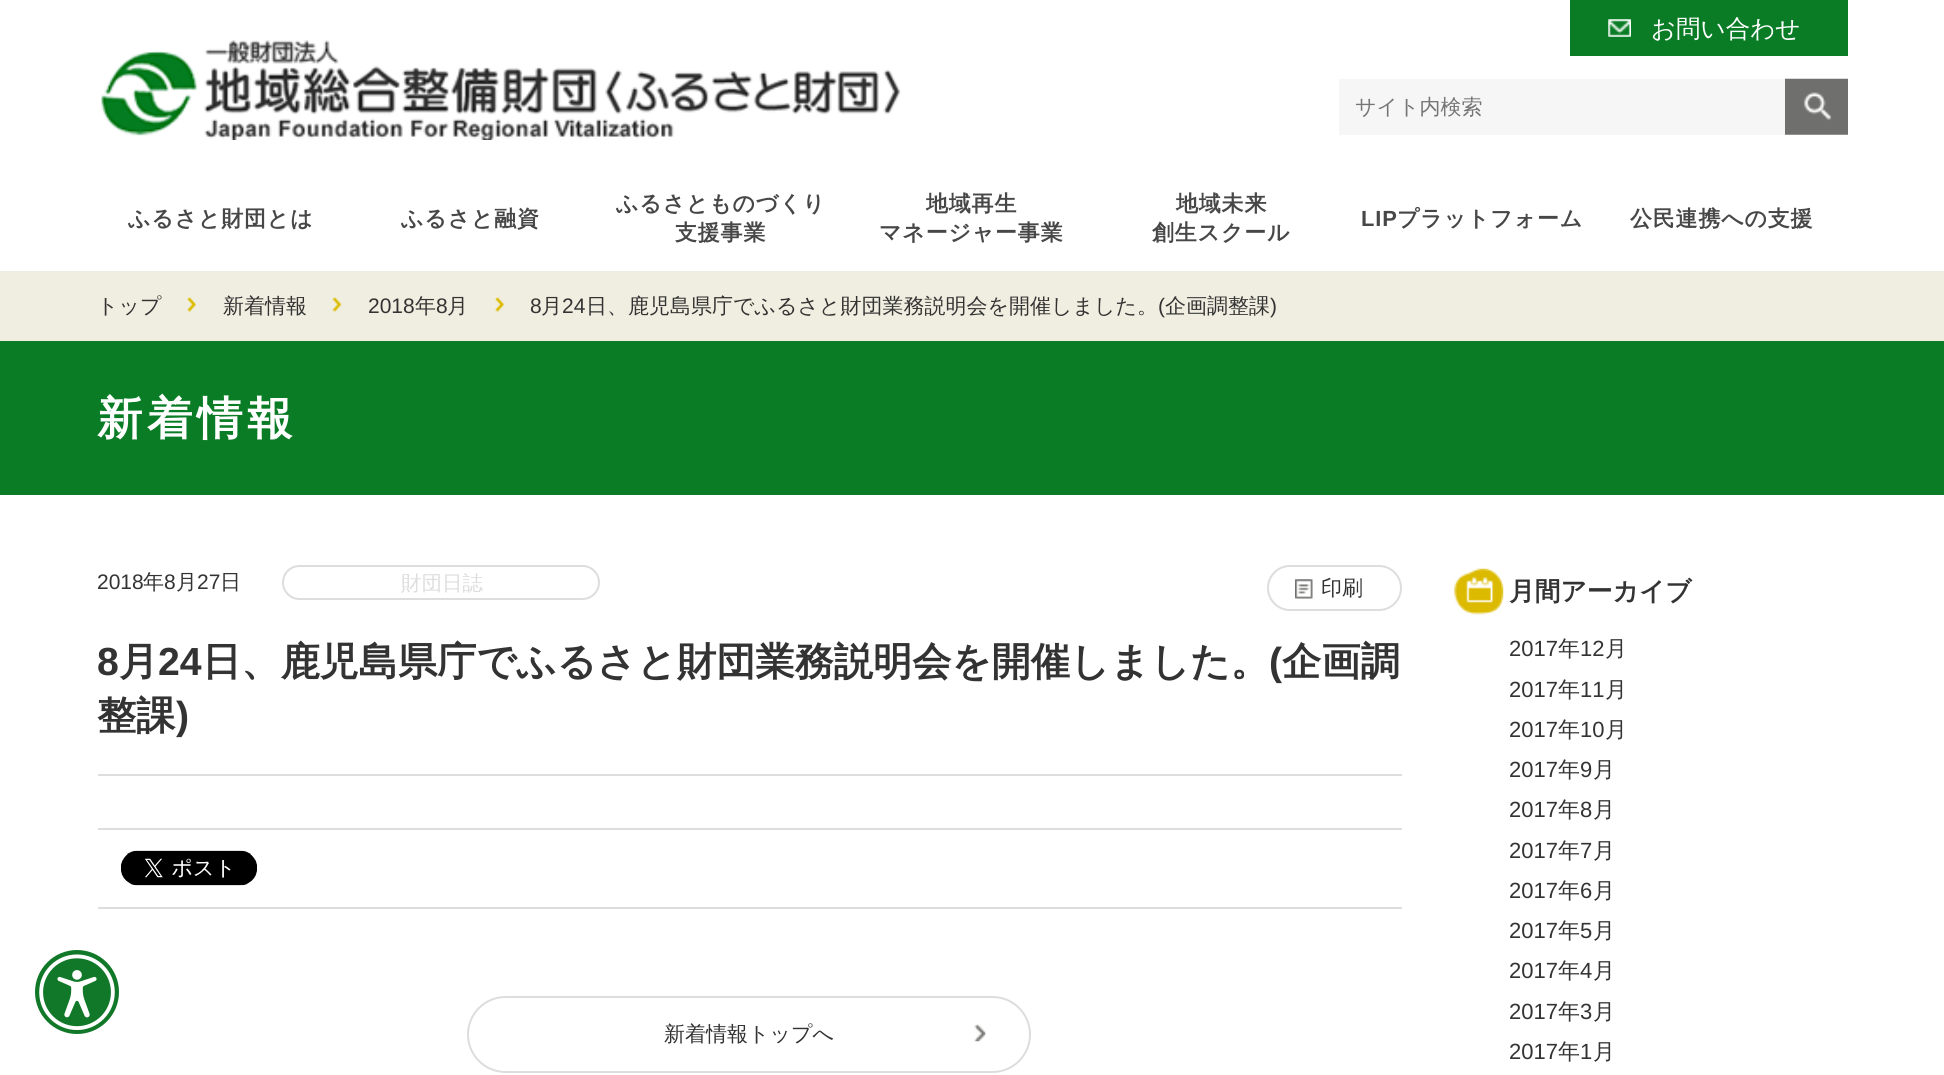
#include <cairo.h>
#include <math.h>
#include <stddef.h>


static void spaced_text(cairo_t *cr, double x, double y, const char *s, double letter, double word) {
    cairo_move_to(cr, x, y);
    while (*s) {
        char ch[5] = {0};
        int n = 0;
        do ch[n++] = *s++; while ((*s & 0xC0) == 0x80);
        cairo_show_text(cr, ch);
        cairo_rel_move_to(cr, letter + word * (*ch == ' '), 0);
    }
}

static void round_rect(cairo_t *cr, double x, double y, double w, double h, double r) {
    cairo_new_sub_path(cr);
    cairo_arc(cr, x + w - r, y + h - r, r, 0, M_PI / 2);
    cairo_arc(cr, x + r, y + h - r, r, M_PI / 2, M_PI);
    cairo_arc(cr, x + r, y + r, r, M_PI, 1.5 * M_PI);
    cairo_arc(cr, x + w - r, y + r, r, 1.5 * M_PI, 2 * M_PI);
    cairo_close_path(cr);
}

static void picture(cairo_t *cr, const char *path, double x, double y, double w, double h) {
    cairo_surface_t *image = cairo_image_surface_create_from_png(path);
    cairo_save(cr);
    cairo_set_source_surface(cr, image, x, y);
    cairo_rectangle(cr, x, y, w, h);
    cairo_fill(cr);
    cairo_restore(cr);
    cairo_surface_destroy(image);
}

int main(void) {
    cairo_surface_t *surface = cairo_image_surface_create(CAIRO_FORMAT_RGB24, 1944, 1075);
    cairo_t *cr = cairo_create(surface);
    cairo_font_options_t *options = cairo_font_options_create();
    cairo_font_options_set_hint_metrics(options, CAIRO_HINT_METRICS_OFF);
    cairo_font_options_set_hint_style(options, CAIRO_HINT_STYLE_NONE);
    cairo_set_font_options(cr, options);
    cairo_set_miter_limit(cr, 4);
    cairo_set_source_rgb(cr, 1, 1, 1);
    cairo_paint(cr);
    cairo_set_source_rgb(cr, 0.067, 0.471, 0.161);
    cairo_arc(cr, 77, 992, 42, 0, 2 * M_PI);
    cairo_fill(cr);
    picture(cr, "img1.png", 39, 954, 76, 76);
    cairo_set_source_rgb(cr, 0.039, 0.486, 0.145);
    cairo_rectangle(cr, 1570, 0, 278, 56);
    cairo_fill(cr);
    picture(cr, "img2.png", 1608, 19, 23, 18);
    cairo_select_font_face(cr, "WenQuanYi Zen Hei Medium", CAIRO_FONT_SLANT_NORMAL, CAIRO_FONT_WEIGHT_NORMAL);
    cairo_set_font_size(cr, 24.5);
    cairo_set_source_rgb(cr, 1, 1, 1);
    cairo_move_to(cr, 1651, 37);
    cairo_show_text(cr, "お問い合わせ");
    picture(cr, "img3.png", 101, 40, 800, 100);
    cairo_set_source_rgb(cr, 0.961, 0.961, 0.961);
    cairo_rectangle(cr, 1339, 79, 446, 56);
    cairo_fill(cr);
    cairo_set_font_size(cr, 21);
    cairo_set_source_rgb(cr, 0.459, 0.459, 0.459);
    cairo_move_to(cr, 1355, 114);
    cairo_show_text(cr, "サイト内検索");
    picture(cr, "img4.png", 1785, 78, 63, 57);
    cairo_select_font_face(cr, "WenQuanYi Zen Hei", CAIRO_FONT_SLANT_NORMAL, CAIRO_FONT_WEIGHT_BOLD);
    cairo_set_font_size(cr, 21.9);
    cairo_set_source_rgb(cr, 0.278, 0.278, 0.278);
    spaced_text(cr, 128, 226, "ふるさと財団とは", 0.9, 0);
    spaced_text(cr, 401, 226, "ふるさと融資", 0.9, 0);
    spaced_text(cr, 616, 211, "ふるさとものづくり", 0.9, 0);
    spaced_text(cr, 675, 240, "支援事業", 0.9, 0);
    spaced_text(cr, 926, 211, "地域再生", 0.9, 0);
    spaced_text(cr, 879, 240, "マネージャー事業", 0.9, 0);
    spaced_text(cr, 1176, 211, "地域未来", 0.9, 0);
    spaced_text(cr, 1152, 240, "創生スクール", 0.9, 0);
    cairo_select_font_face(cr, "Liberation Sans", CAIRO_FONT_SLANT_NORMAL, CAIRO_FONT_WEIGHT_BOLD);
    spaced_text(cr, 1361, 226, "LIP", 0.9, 0);
    cairo_select_font_face(cr, "WenQuanYi Zen Hei", CAIRO_FONT_SLANT_NORMAL, CAIRO_FONT_WEIGHT_BOLD);
    spaced_text(cr, 1397, 226, "プラットフォーム", 0.9, 0);
    spaced_text(cr, 1630, 226, "公民連携への支援", 0.9, 0);
    cairo_set_source_rgb(cr, 0.941, 0.933, 0.878);
    cairo_rectangle(cr, 0, 271, 1944, 70);
    cairo_fill(cr);
    cairo_select_font_face(cr, "WenQuanYi Zen Hei Medium", CAIRO_FONT_SLANT_NORMAL, CAIRO_FONT_WEIGHT_NORMAL);
    cairo_set_font_size(cr, 21);
    cairo_set_source_rgb(cr, 0.2, 0.2, 0.2);
    cairo_move_to(cr, 97, 313);
    cairo_show_text(cr, "トップ");
    picture(cr, "img5.png", 187, 297, 9, 15);
    cairo_move_to(cr, 223, 313);
    cairo_show_text(cr, "新着情報");
    picture(cr, "img6.png", 332, 297, 10, 15);
    cairo_select_font_face(cr, "Liberation Sans", CAIRO_FONT_SLANT_NORMAL, CAIRO_FONT_WEIGHT_NORMAL);
    cairo_move_to(cr, 368, 313);
    cairo_show_text(cr, "2018");
    cairo_select_font_face(cr, "WenQuanYi Zen Hei Medium", CAIRO_FONT_SLANT_NORMAL, CAIRO_FONT_WEIGHT_NORMAL);
    cairo_move_to(cr, 415, 313);
    cairo_show_text(cr, "年");
    cairo_select_font_face(cr, "Liberation Sans", CAIRO_FONT_SLANT_NORMAL, CAIRO_FONT_WEIGHT_NORMAL);
    cairo_move_to(cr, 436, 313);
    cairo_show_text(cr, "8");
    cairo_select_font_face(cr, "WenQuanYi Zen Hei Medium", CAIRO_FONT_SLANT_NORMAL, CAIRO_FONT_WEIGHT_NORMAL);
    cairo_move_to(cr, 447, 313);
    cairo_show_text(cr, "月");
    picture(cr, "img5.png", 495, 297, 9, 15);
    cairo_select_font_face(cr, "Liberation Sans", CAIRO_FONT_SLANT_NORMAL, CAIRO_FONT_WEIGHT_NORMAL);
    cairo_move_to(cr, 530, 313);
    cairo_show_text(cr, "8");
    cairo_select_font_face(cr, "WenQuanYi Zen Hei Medium", CAIRO_FONT_SLANT_NORMAL, CAIRO_FONT_WEIGHT_NORMAL);
    cairo_move_to(cr, 541, 313);
    cairo_show_text(cr, "月");
    cairo_select_font_face(cr, "Liberation Sans", CAIRO_FONT_SLANT_NORMAL, CAIRO_FONT_WEIGHT_NORMAL);
    cairo_move_to(cr, 562, 313);
    cairo_show_text(cr, "24");
    cairo_select_font_face(cr, "WenQuanYi Zen Hei Medium", CAIRO_FONT_SLANT_NORMAL, CAIRO_FONT_WEIGHT_NORMAL);
    cairo_move_to(cr, 586, 313);
    cairo_show_text(cr, "日、鹿児島県庁でふるさと財団業務説明会を開催しました。");
    cairo_select_font_face(cr, "Liberation Sans", CAIRO_FONT_SLANT_NORMAL, CAIRO_FONT_WEIGHT_NORMAL);
    cairo_move_to(cr, 1158, 313);
    cairo_show_text(cr, "(");
    cairo_select_font_face(cr, "WenQuanYi Zen Hei Medium", CAIRO_FONT_SLANT_NORMAL, CAIRO_FONT_WEIGHT_NORMAL);
    cairo_move_to(cr, 1165, 313);
    cairo_show_text(cr, "企画調整課");
    cairo_select_font_face(cr, "Liberation Sans", CAIRO_FONT_SLANT_NORMAL, CAIRO_FONT_WEIGHT_NORMAL);
    cairo_move_to(cr, 1270, 313);
    cairo_show_text(cr, ")");
    cairo_set_source_rgb(cr, 0.039, 0.486, 0.145);
    cairo_rectangle(cr, 0, 341, 1944, 154);
    cairo_fill(cr);
    cairo_select_font_face(cr, "WenQuanYi Zen Hei", CAIRO_FONT_SLANT_NORMAL, CAIRO_FONT_WEIGHT_BOLD);
    cairo_set_font_size(cr, 45.5);
    cairo_set_source_rgb(cr, 1, 1, 1);
    spaced_text(cr, 97, 434, "新着情報", 4.5, 0);
    cairo_set_source_rgb(cr, 0.867, 0.867, 0.867);
    cairo_rectangle(cr, 98, 774, 1304, 2);
    cairo_fill(cr);
    cairo_select_font_face(cr, "Liberation Sans", CAIRO_FONT_SLANT_NORMAL, CAIRO_FONT_WEIGHT_NORMAL);
    cairo_set_font_size(cr, 21);
    cairo_set_source_rgb(cr, 0.2, 0.2, 0.2);
    cairo_move_to(cr, 97, 589);
    cairo_show_text(cr, "2018");
    cairo_select_font_face(cr, "WenQuanYi Zen Hei Medium", CAIRO_FONT_SLANT_NORMAL, CAIRO_FONT_WEIGHT_NORMAL);
    cairo_move_to(cr, 143, 589);
    cairo_show_text(cr, "年");
    cairo_select_font_face(cr, "Liberation Sans", CAIRO_FONT_SLANT_NORMAL, CAIRO_FONT_WEIGHT_NORMAL);
    cairo_move_to(cr, 164, 589);
    cairo_show_text(cr, "8");
    cairo_select_font_face(cr, "WenQuanYi Zen Hei Medium", CAIRO_FONT_SLANT_NORMAL, CAIRO_FONT_WEIGHT_NORMAL);
    cairo_move_to(cr, 176, 589);
    cairo_show_text(cr, "月");
    cairo_select_font_face(cr, "Liberation Sans", CAIRO_FONT_SLANT_NORMAL, CAIRO_FONT_WEIGHT_NORMAL);
    cairo_move_to(cr, 197, 589);
    cairo_show_text(cr, "27");
    cairo_select_font_face(cr, "WenQuanYi Zen Hei Medium", CAIRO_FONT_SLANT_NORMAL, CAIRO_FONT_WEIGHT_NORMAL);
    cairo_move_to(cr, 220, 589);
    cairo_show_text(cr, "日");
    round_rect(cr, 283, 566, 316, 33, 16.5);
    cairo_set_source_rgb(cr, 0.867, 0.867, 0.867);
    cairo_stroke(cr);
    cairo_set_font_size(cr, 20.5);
    cairo_move_to(cr, 401, 590);
    cairo_show_text(cr, "財団日誌");
    round_rect(cr, 1268, 566, 133, 44, 22);
    cairo_stroke(cr);
    picture(cr, "img7.png", 1295, 579, 18, 20);
    cairo_set_font_size(cr, 21);
    cairo_set_source_rgb(cr, 0.2, 0.2, 0.2);
    cairo_move_to(cr, 1321, 595);
    cairo_show_text(cr, "印刷");
    cairo_select_font_face(cr, "Liberation Sans", CAIRO_FONT_SLANT_NORMAL, CAIRO_FONT_WEIGHT_BOLD);
    cairo_set_font_size(cr, 39.2);
    cairo_move_to(cr, 97, 675);
    cairo_show_text(cr, "8");
    cairo_select_font_face(cr, "WenQuanYi Zen Hei", CAIRO_FONT_SLANT_NORMAL, CAIRO_FONT_WEIGHT_BOLD);
    cairo_move_to(cr, 119, 675);
    cairo_show_text(cr, "月");
    cairo_select_font_face(cr, "Liberation Sans", CAIRO_FONT_SLANT_NORMAL, CAIRO_FONT_WEIGHT_BOLD);
    cairo_move_to(cr, 158, 675);
    cairo_show_text(cr, "24");
    cairo_select_font_face(cr, "WenQuanYi Zen Hei", CAIRO_FONT_SLANT_NORMAL, CAIRO_FONT_WEIGHT_BOLD);
    cairo_move_to(cr, 202, 675);
    cairo_show_text(cr, "日、鹿児島県庁でふるさと財団業務説明会を開催しました。");
    cairo_select_font_face(cr, "Liberation Sans", CAIRO_FONT_SLANT_NORMAL, CAIRO_FONT_WEIGHT_BOLD);
    cairo_move_to(cr, 1269, 675);
    cairo_show_text(cr, "(");
    cairo_select_font_face(cr, "WenQuanYi Zen Hei", CAIRO_FONT_SLANT_NORMAL, CAIRO_FONT_WEIGHT_BOLD);
    cairo_move_to(cr, 1282, 675);
    cairo_show_text(cr, "企画調");
    cairo_move_to(cr, 97, 729);
    cairo_show_text(cr, "整課");
    cairo_select_font_face(cr, "Liberation Sans", CAIRO_FONT_SLANT_NORMAL, CAIRO_FONT_WEIGHT_BOLD);
    cairo_move_to(cr, 176, 729);
    cairo_show_text(cr, ")");
    cairo_set_source_rgb(cr, 0.867, 0.867, 0.867);
    cairo_rectangle(cr, 98, 828, 1304, 2);
    cairo_fill(cr);
    cairo_rectangle(cr, 98, 907, 1304, 2);
    cairo_fill(cr);
    picture(cr, "img8.png", 121, 850, 136, 36);
    round_rect(cr, 468, 997, 562, 75, 37.5);
    cairo_stroke(cr);
    cairo_select_font_face(cr, "WenQuanYi Zen Hei Medium", CAIRO_FONT_SLANT_NORMAL, CAIRO_FONT_WEIGHT_NORMAL);
    cairo_set_font_size(cr, 21);
    cairo_set_source_rgb(cr, 0.2, 0.2, 0.2);
    cairo_move_to(cr, 664, 1041);
    cairo_show_text(cr, "新着情報トップへ");
    picture(cr, "img9.png", 974, 1023, 12, 19);
    picture(cr, "img10.png", 1454, 568, 50, 47);
    cairo_select_font_face(cr, "WenQuanYi Zen Hei", CAIRO_FONT_SLANT_NORMAL, CAIRO_FONT_WEIGHT_BOLD);
    cairo_set_font_size(cr, 25.75);
    cairo_move_to(cr, 1509, 600);
    cairo_show_text(cr, "月間アーカイブ");
    cairo_select_font_face(cr, "Liberation Sans", CAIRO_FONT_SLANT_NORMAL, CAIRO_FONT_WEIGHT_NORMAL);
    cairo_set_font_size(cr, 22);
    cairo_move_to(cr, 1509, 656);
    cairo_show_text(cr, "2017");
    cairo_select_font_face(cr, "WenQuanYi Zen Hei Medium", CAIRO_FONT_SLANT_NORMAL, CAIRO_FONT_WEIGHT_NORMAL);
    cairo_move_to(cr, 1558, 656);
    cairo_show_text(cr, "年");
    cairo_select_font_face(cr, "Liberation Sans", CAIRO_FONT_SLANT_NORMAL, CAIRO_FONT_WEIGHT_NORMAL);
    cairo_move_to(cr, 1580, 656);
    cairo_show_text(cr, "12");
    cairo_select_font_face(cr, "WenQuanYi Zen Hei Medium", CAIRO_FONT_SLANT_NORMAL, CAIRO_FONT_WEIGHT_NORMAL);
    cairo_move_to(cr, 1605, 656);
    cairo_show_text(cr, "月");
    cairo_select_font_face(cr, "Liberation Sans", CAIRO_FONT_SLANT_NORMAL, CAIRO_FONT_WEIGHT_NORMAL);
    cairo_move_to(cr, 1509, 697);
    cairo_show_text(cr, "2017");
    cairo_select_font_face(cr, "WenQuanYi Zen Hei Medium", CAIRO_FONT_SLANT_NORMAL, CAIRO_FONT_WEIGHT_NORMAL);
    cairo_move_to(cr, 1558, 697);
    cairo_show_text(cr, "年");
    cairo_select_font_face(cr, "Liberation Sans", CAIRO_FONT_SLANT_NORMAL, CAIRO_FONT_WEIGHT_NORMAL);
    cairo_move_to(cr, 1580, 697);
    cairo_show_text(cr, "11");
    cairo_select_font_face(cr, "WenQuanYi Zen Hei Medium", CAIRO_FONT_SLANT_NORMAL, CAIRO_FONT_WEIGHT_NORMAL);
    cairo_move_to(cr, 1605, 697);
    cairo_show_text(cr, "月");
    cairo_select_font_face(cr, "Liberation Sans", CAIRO_FONT_SLANT_NORMAL, CAIRO_FONT_WEIGHT_NORMAL);
    cairo_move_to(cr, 1509, 737);
    cairo_show_text(cr, "2017");
    cairo_select_font_face(cr, "WenQuanYi Zen Hei Medium", CAIRO_FONT_SLANT_NORMAL, CAIRO_FONT_WEIGHT_NORMAL);
    cairo_move_to(cr, 1558, 737);
    cairo_show_text(cr, "年");
    cairo_select_font_face(cr, "Liberation Sans", CAIRO_FONT_SLANT_NORMAL, CAIRO_FONT_WEIGHT_NORMAL);
    cairo_move_to(cr, 1580, 737);
    cairo_show_text(cr, "10");
    cairo_select_font_face(cr, "WenQuanYi Zen Hei Medium", CAIRO_FONT_SLANT_NORMAL, CAIRO_FONT_WEIGHT_NORMAL);
    cairo_move_to(cr, 1605, 737);
    cairo_show_text(cr, "月");
    cairo_select_font_face(cr, "Liberation Sans", CAIRO_FONT_SLANT_NORMAL, CAIRO_FONT_WEIGHT_NORMAL);
    cairo_move_to(cr, 1509, 777);
    cairo_show_text(cr, "2017");
    cairo_select_font_face(cr, "WenQuanYi Zen Hei Medium", CAIRO_FONT_SLANT_NORMAL, CAIRO_FONT_WEIGHT_NORMAL);
    cairo_move_to(cr, 1558, 777);
    cairo_show_text(cr, "年");
    cairo_select_font_face(cr, "Liberation Sans", CAIRO_FONT_SLANT_NORMAL, CAIRO_FONT_WEIGHT_NORMAL);
    cairo_move_to(cr, 1580, 777);
    cairo_show_text(cr, "9");
    cairo_select_font_face(cr, "WenQuanYi Zen Hei Medium", CAIRO_FONT_SLANT_NORMAL, CAIRO_FONT_WEIGHT_NORMAL);
    cairo_move_to(cr, 1593, 777);
    cairo_show_text(cr, "月");
    cairo_select_font_face(cr, "Liberation Sans", CAIRO_FONT_SLANT_NORMAL, CAIRO_FONT_WEIGHT_NORMAL);
    cairo_move_to(cr, 1509, 817);
    cairo_show_text(cr, "2017");
    cairo_select_font_face(cr, "WenQuanYi Zen Hei Medium", CAIRO_FONT_SLANT_NORMAL, CAIRO_FONT_WEIGHT_NORMAL);
    cairo_move_to(cr, 1558, 817);
    cairo_show_text(cr, "年");
    cairo_select_font_face(cr, "Liberation Sans", CAIRO_FONT_SLANT_NORMAL, CAIRO_FONT_WEIGHT_NORMAL);
    cairo_move_to(cr, 1580, 817);
    cairo_show_text(cr, "8");
    cairo_select_font_face(cr, "WenQuanYi Zen Hei Medium", CAIRO_FONT_SLANT_NORMAL, CAIRO_FONT_WEIGHT_NORMAL);
    cairo_move_to(cr, 1593, 817);
    cairo_show_text(cr, "月");
    cairo_select_font_face(cr, "Liberation Sans", CAIRO_FONT_SLANT_NORMAL, CAIRO_FONT_WEIGHT_NORMAL);
    cairo_move_to(cr, 1509, 858);
    cairo_show_text(cr, "2017");
    cairo_select_font_face(cr, "WenQuanYi Zen Hei Medium", CAIRO_FONT_SLANT_NORMAL, CAIRO_FONT_WEIGHT_NORMAL);
    cairo_move_to(cr, 1558, 858);
    cairo_show_text(cr, "年");
    cairo_select_font_face(cr, "Liberation Sans", CAIRO_FONT_SLANT_NORMAL, CAIRO_FONT_WEIGHT_NORMAL);
    cairo_move_to(cr, 1580, 858);
    cairo_show_text(cr, "7");
    cairo_select_font_face(cr, "WenQuanYi Zen Hei Medium", CAIRO_FONT_SLANT_NORMAL, CAIRO_FONT_WEIGHT_NORMAL);
    cairo_move_to(cr, 1593, 858);
    cairo_show_text(cr, "月");
    cairo_select_font_face(cr, "Liberation Sans", CAIRO_FONT_SLANT_NORMAL, CAIRO_FONT_WEIGHT_NORMAL);
    cairo_move_to(cr, 1509, 898);
    cairo_show_text(cr, "2017");
    cairo_select_font_face(cr, "WenQuanYi Zen Hei Medium", CAIRO_FONT_SLANT_NORMAL, CAIRO_FONT_WEIGHT_NORMAL);
    cairo_move_to(cr, 1558, 898);
    cairo_show_text(cr, "年");
    cairo_select_font_face(cr, "Liberation Sans", CAIRO_FONT_SLANT_NORMAL, CAIRO_FONT_WEIGHT_NORMAL);
    cairo_move_to(cr, 1580, 898);
    cairo_show_text(cr, "6");
    cairo_select_font_face(cr, "WenQuanYi Zen Hei Medium", CAIRO_FONT_SLANT_NORMAL, CAIRO_FONT_WEIGHT_NORMAL);
    cairo_move_to(cr, 1593, 898);
    cairo_show_text(cr, "月");
    cairo_select_font_face(cr, "Liberation Sans", CAIRO_FONT_SLANT_NORMAL, CAIRO_FONT_WEIGHT_NORMAL);
    cairo_move_to(cr, 1509, 938);
    cairo_show_text(cr, "2017");
    cairo_select_font_face(cr, "WenQuanYi Zen Hei Medium", CAIRO_FONT_SLANT_NORMAL, CAIRO_FONT_WEIGHT_NORMAL);
    cairo_move_to(cr, 1558, 938);
    cairo_show_text(cr, "年");
    cairo_select_font_face(cr, "Liberation Sans", CAIRO_FONT_SLANT_NORMAL, CAIRO_FONT_WEIGHT_NORMAL);
    cairo_move_to(cr, 1580, 938);
    cairo_show_text(cr, "5");
    cairo_select_font_face(cr, "WenQuanYi Zen Hei Medium", CAIRO_FONT_SLANT_NORMAL, CAIRO_FONT_WEIGHT_NORMAL);
    cairo_move_to(cr, 1593, 938);
    cairo_show_text(cr, "月");
    cairo_select_font_face(cr, "Liberation Sans", CAIRO_FONT_SLANT_NORMAL, CAIRO_FONT_WEIGHT_NORMAL);
    cairo_move_to(cr, 1509, 978);
    cairo_show_text(cr, "2017");
    cairo_select_font_face(cr, "WenQuanYi Zen Hei Medium", CAIRO_FONT_SLANT_NORMAL, CAIRO_FONT_WEIGHT_NORMAL);
    cairo_move_to(cr, 1558, 978);
    cairo_show_text(cr, "年");
    cairo_select_font_face(cr, "Liberation Sans", CAIRO_FONT_SLANT_NORMAL, CAIRO_FONT_WEIGHT_NORMAL);
    cairo_move_to(cr, 1580, 978);
    cairo_show_text(cr, "4");
    cairo_select_font_face(cr, "WenQuanYi Zen Hei Medium", CAIRO_FONT_SLANT_NORMAL, CAIRO_FONT_WEIGHT_NORMAL);
    cairo_move_to(cr, 1593, 978);
    cairo_show_text(cr, "月");
    cairo_select_font_face(cr, "Liberation Sans", CAIRO_FONT_SLANT_NORMAL, CAIRO_FONT_WEIGHT_NORMAL);
    cairo_move_to(cr, 1509, 1019);
    cairo_show_text(cr, "2017");
    cairo_select_font_face(cr, "WenQuanYi Zen Hei Medium", CAIRO_FONT_SLANT_NORMAL, CAIRO_FONT_WEIGHT_NORMAL);
    cairo_move_to(cr, 1558, 1019);
    cairo_show_text(cr, "年");
    cairo_select_font_face(cr, "Liberation Sans", CAIRO_FONT_SLANT_NORMAL, CAIRO_FONT_WEIGHT_NORMAL);
    cairo_move_to(cr, 1580, 1019);
    cairo_show_text(cr, "3");
    cairo_select_font_face(cr, "WenQuanYi Zen Hei Medium", CAIRO_FONT_SLANT_NORMAL, CAIRO_FONT_WEIGHT_NORMAL);
    cairo_move_to(cr, 1593, 1019);
    cairo_show_text(cr, "月");
    cairo_select_font_face(cr, "Liberation Sans", CAIRO_FONT_SLANT_NORMAL, CAIRO_FONT_WEIGHT_NORMAL);
    cairo_move_to(cr, 1509, 1059);
    cairo_show_text(cr, "2017");
    cairo_select_font_face(cr, "WenQuanYi Zen Hei Medium", CAIRO_FONT_SLANT_NORMAL, CAIRO_FONT_WEIGHT_NORMAL);
    cairo_move_to(cr, 1558, 1059);
    cairo_show_text(cr, "年");
    cairo_select_font_face(cr, "Liberation Sans", CAIRO_FONT_SLANT_NORMAL, CAIRO_FONT_WEIGHT_NORMAL);
    cairo_move_to(cr, 1580, 1059);
    cairo_show_text(cr, "1");
    cairo_select_font_face(cr, "WenQuanYi Zen Hei Medium", CAIRO_FONT_SLANT_NORMAL, CAIRO_FONT_WEIGHT_NORMAL);
    cairo_move_to(cr, 1593, 1059);
    cairo_show_text(cr, "月");
    cairo_surface_write_to_png(surface, "page.png");
    cairo_font_options_destroy(options);
    cairo_destroy(cr);
    cairo_surface_destroy(surface);
    return 0;
}
